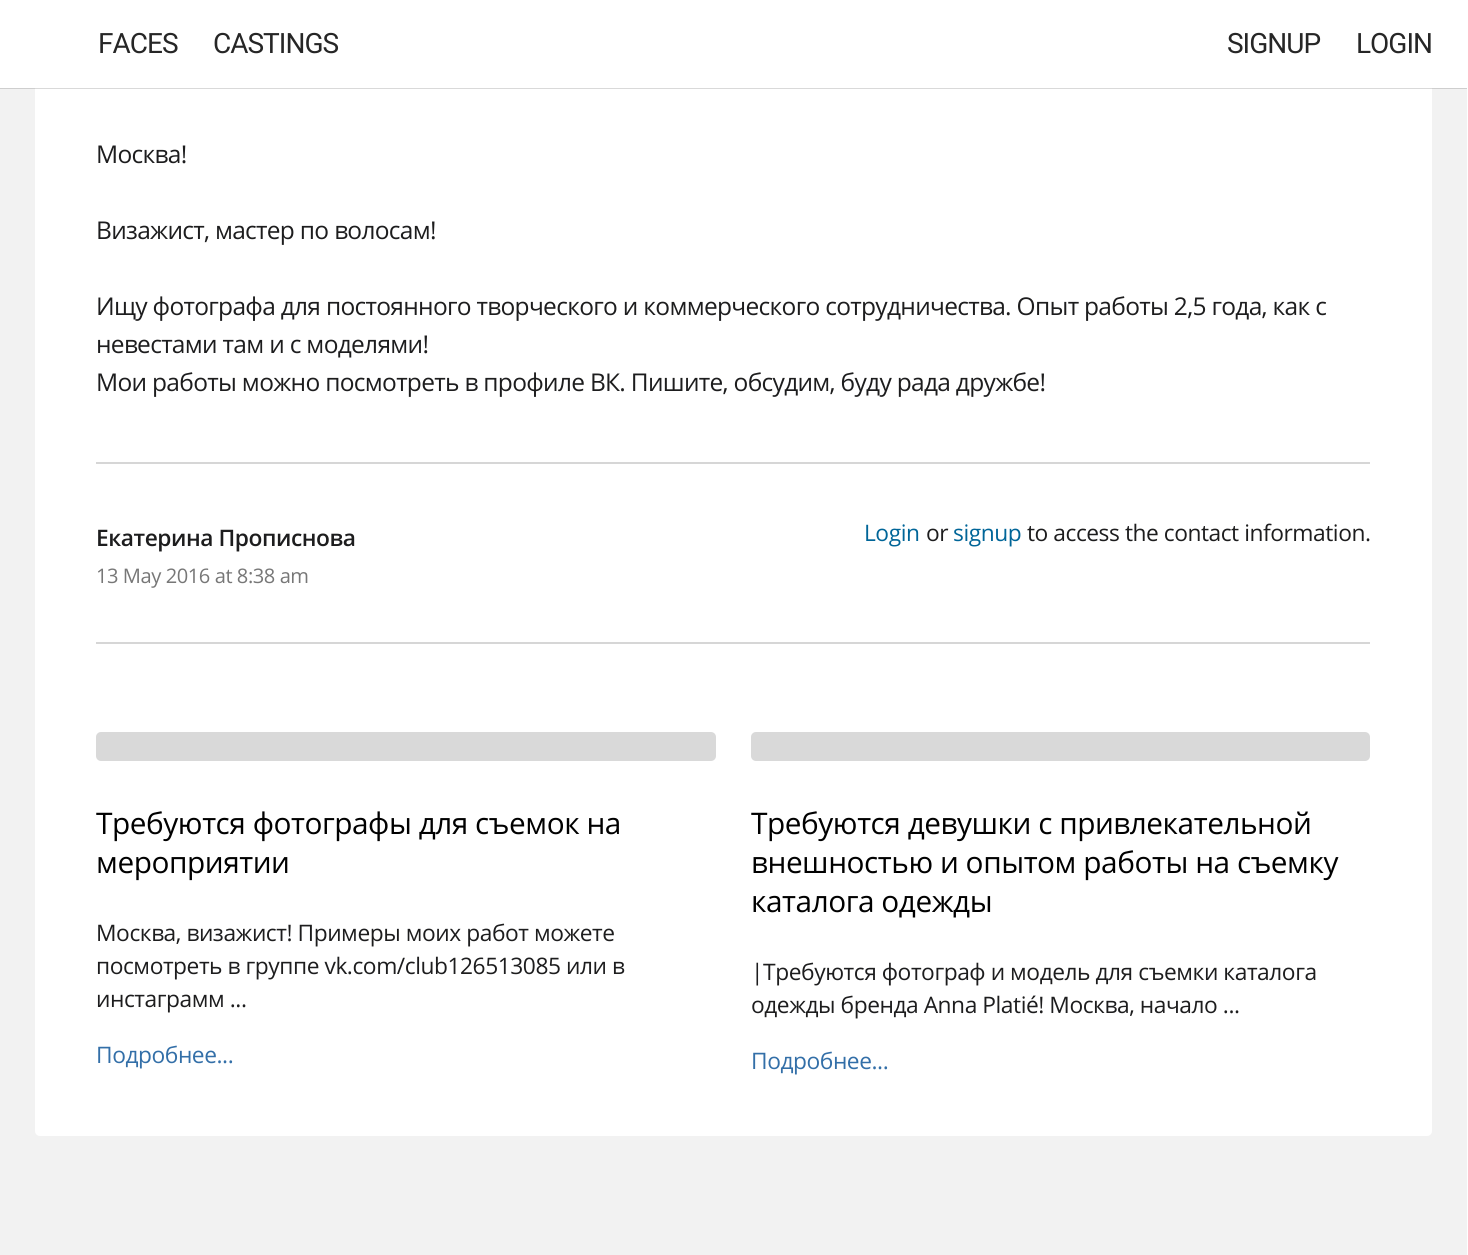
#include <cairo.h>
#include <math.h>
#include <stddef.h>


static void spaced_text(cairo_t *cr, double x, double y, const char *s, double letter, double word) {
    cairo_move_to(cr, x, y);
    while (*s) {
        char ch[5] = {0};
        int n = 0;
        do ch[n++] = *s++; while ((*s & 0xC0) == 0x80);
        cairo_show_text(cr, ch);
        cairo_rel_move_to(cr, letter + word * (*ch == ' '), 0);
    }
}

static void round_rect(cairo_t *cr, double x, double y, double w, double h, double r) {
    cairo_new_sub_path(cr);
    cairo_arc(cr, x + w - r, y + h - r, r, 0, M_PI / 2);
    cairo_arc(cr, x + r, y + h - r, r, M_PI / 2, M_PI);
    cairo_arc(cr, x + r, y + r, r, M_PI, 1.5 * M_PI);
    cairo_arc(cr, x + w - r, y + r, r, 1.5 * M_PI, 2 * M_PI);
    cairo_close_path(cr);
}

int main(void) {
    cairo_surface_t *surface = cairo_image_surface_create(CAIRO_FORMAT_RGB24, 1468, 1255);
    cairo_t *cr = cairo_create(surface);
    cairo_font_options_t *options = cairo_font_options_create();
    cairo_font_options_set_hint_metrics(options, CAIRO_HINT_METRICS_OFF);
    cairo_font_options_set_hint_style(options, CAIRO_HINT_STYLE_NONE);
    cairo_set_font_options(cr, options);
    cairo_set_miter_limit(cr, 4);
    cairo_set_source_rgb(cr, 1, 1, 1);
    cairo_paint(cr);
    cairo_set_source_rgb(cr, 0.949, 0.949, 0.949);
    cairo_rectangle(cr, 0, 88, 1467, 1167);
    cairo_fill(cr);
    cairo_set_source_rgb(cr, 1, 1, 1);
    round_rect(cr, 35, -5, 1397, 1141, 5);
    cairo_fill(cr);
    cairo_set_source_rgba(cr, 0, 0, 0, 0.15);
    cairo_new_path(cr);
    cairo_move_to(cr, 0, 88);
    cairo_line_to(cr, 0, 89);
    cairo_line_to(cr, 1467, 89);
    cairo_line_to(cr, 1467, 2);
    cairo_line_to(cr, 1466, 2);
    cairo_line_to(cr, 1466, 88);
    cairo_close_path(cr);
    cairo_fill(cr);
    cairo_set_source_rgb(cr, 1, 1, 1);
    cairo_rectangle(cr, 1466, 2, 1, 86);
    cairo_fill(cr);
    cairo_select_font_face(cr, "Roboto", CAIRO_FONT_SLANT_NORMAL, CAIRO_FONT_WEIGHT_NORMAL);
    cairo_set_font_size(cr, 28);
    cairo_set_source_rgb(cr, 0.149, 0.149, 0.149);
    spaced_text(cr, 98, 53, "FACES", -1, 0);
    spaced_text(cr, 213, 53, "CASTINGS", -1, 0);
    spaced_text(cr, 1227, 53, "SIGNUP", -1, 0);
    spaced_text(cr, 1356, 53, "LOGIN", -1, 0);
    cairo_select_font_face(cr, "Open Sans", CAIRO_FONT_SLANT_NORMAL, CAIRO_FONT_WEIGHT_NORMAL);
    cairo_set_font_size(cr, 24.5);
    cairo_set_source_rgb(cr, 0.114, 0.114, 0.118);
    spaced_text(cr, 96, 163, "Москва!", -0.7, 0);
    spaced_text(cr, 96, 239, "Визажист, мастер по волосам!", -0.7, 0);
    spaced_text(cr, 96, 315, "Ищу фотографа для постоянного творческого и коммерческого сотрудничества. Опыт работы 2,5 года, как с", -0.7, 0);
    spaced_text(cr, 96, 353, "невестами там и с моделями!", -0.7, 0);
    spaced_text(cr, 96, 391, "Мои работы можно посмотреть в профиле ВК. Пишите, обсудим, буду рада дружбе!", -0.7, 0);
    cairo_set_source_rgb(cr, 0.839, 0.839, 0.839);
    cairo_rectangle(cr, 96, 462, 1274, 2);
    cairo_fill(cr);
    cairo_select_font_face(cr, "Open Sans SemiBold", CAIRO_FONT_SLANT_NORMAL, CAIRO_FONT_WEIGHT_NORMAL);
    cairo_set_font_size(cr, 22.75);
    cairo_set_source_rgb(cr, 0.114, 0.114, 0.118);
    spaced_text(cr, 96, 546, "Екатерина Прописнова", -0.45, 0);
    cairo_select_font_face(cr, "Open Sans", CAIRO_FONT_SLANT_NORMAL, CAIRO_FONT_WEIGHT_NORMAL);
    cairo_set_font_size(cr, 20.1);
    cairo_set_source_rgb(cr, 0.467, 0.467, 0.467);
    spaced_text(cr, 96, 583, "13 May 2016 at 8:38 am", -0.45, 0);
    cairo_set_font_size(cr, 22.75);
    cairo_set_source_rgb(cr, 0, 0.396, 0.596);
    spaced_text(cr, 864, 541, "Login", -0.45, 0);
    cairo_set_source_rgb(cr, 0.114, 0.114, 0.118);
    spaced_text(cr, 926, 541, "or", -0.45, 0);
    cairo_set_source_rgb(cr, 0, 0.396, 0.596);
    spaced_text(cr, 953, 541, "signup", -0.45, 0);
    cairo_set_source_rgb(cr, 0.114, 0.114, 0.118);
    spaced_text(cr, 1027, 541, "to access the contact information.", -0.45, 0);
    cairo_set_source_rgb(cr, 0.839, 0.839, 0.839);
    cairo_rectangle(cr, 96, 642, 1274, 2);
    cairo_fill(cr);
    cairo_set_source_rgb(cr, 0.851, 0.851, 0.851);
    round_rect(cr, 96, 732, 620, 29, 5);
    cairo_fill(cr);
    cairo_set_font_size(cr, 29.75);
    cairo_set_source_rgb(cr, 0, 0, 0);
    spaced_text(cr, 96, 834, "Требуются фотографы для съемок на", -0.45, 0);
    spaced_text(cr, 96, 873, "мероприятии", -0.45, 0);
    cairo_set_font_size(cr, 22.75);
    cairo_set_source_rgb(cr, 0.114, 0.114, 0.118);
    spaced_text(cr, 96, 941, "Москва, визажист! Примеры моих работ можете", -0.45, 0);
    spaced_text(cr, 96, 974, "посмотреть в группе vk.com/club126513085 или в", -0.45, 0);
    spaced_text(cr, 96, 1007, "инстаграмм ...", -0.45, 0);
    cairo_set_source_rgb(cr, 0.2, 0.435, 0.659);
    spaced_text(cr, 96, 1063, "Подробнее...", -0.45, 0);
    cairo_set_source_rgb(cr, 0.851, 0.851, 0.851);
    round_rect(cr, 751, 732, 619, 29, 5);
    cairo_fill(cr);
    cairo_set_font_size(cr, 29.75);
    cairo_set_source_rgb(cr, 0, 0, 0);
    spaced_text(cr, 751, 834, "Требуются девушки с привлекательной", -0.45, 0);
    spaced_text(cr, 751, 873, "внешностью и опытом работы на съемку", -0.45, 0);
    spaced_text(cr, 751, 912, "каталога одежды", -0.45, 0);
    cairo_set_font_size(cr, 22.75);
    cairo_set_source_rgb(cr, 0.114, 0.114, 0.118);
    spaced_text(cr, 751, 980, "|Требуются фотограф и модель для съемки каталога", -0.45, 0);
    spaced_text(cr, 751, 1013, "одежды бренда Anna Platié! Москва, начало ...", -0.45, 0);
    cairo_set_source_rgb(cr, 0.2, 0.435, 0.659);
    spaced_text(cr, 751, 1069, "Подробнее...", -0.45, 0);
    cairo_surface_write_to_png(surface, "page.png");
    cairo_font_options_destroy(options);
    cairo_destroy(cr);
    cairo_surface_destroy(surface);
    return 0;
}
